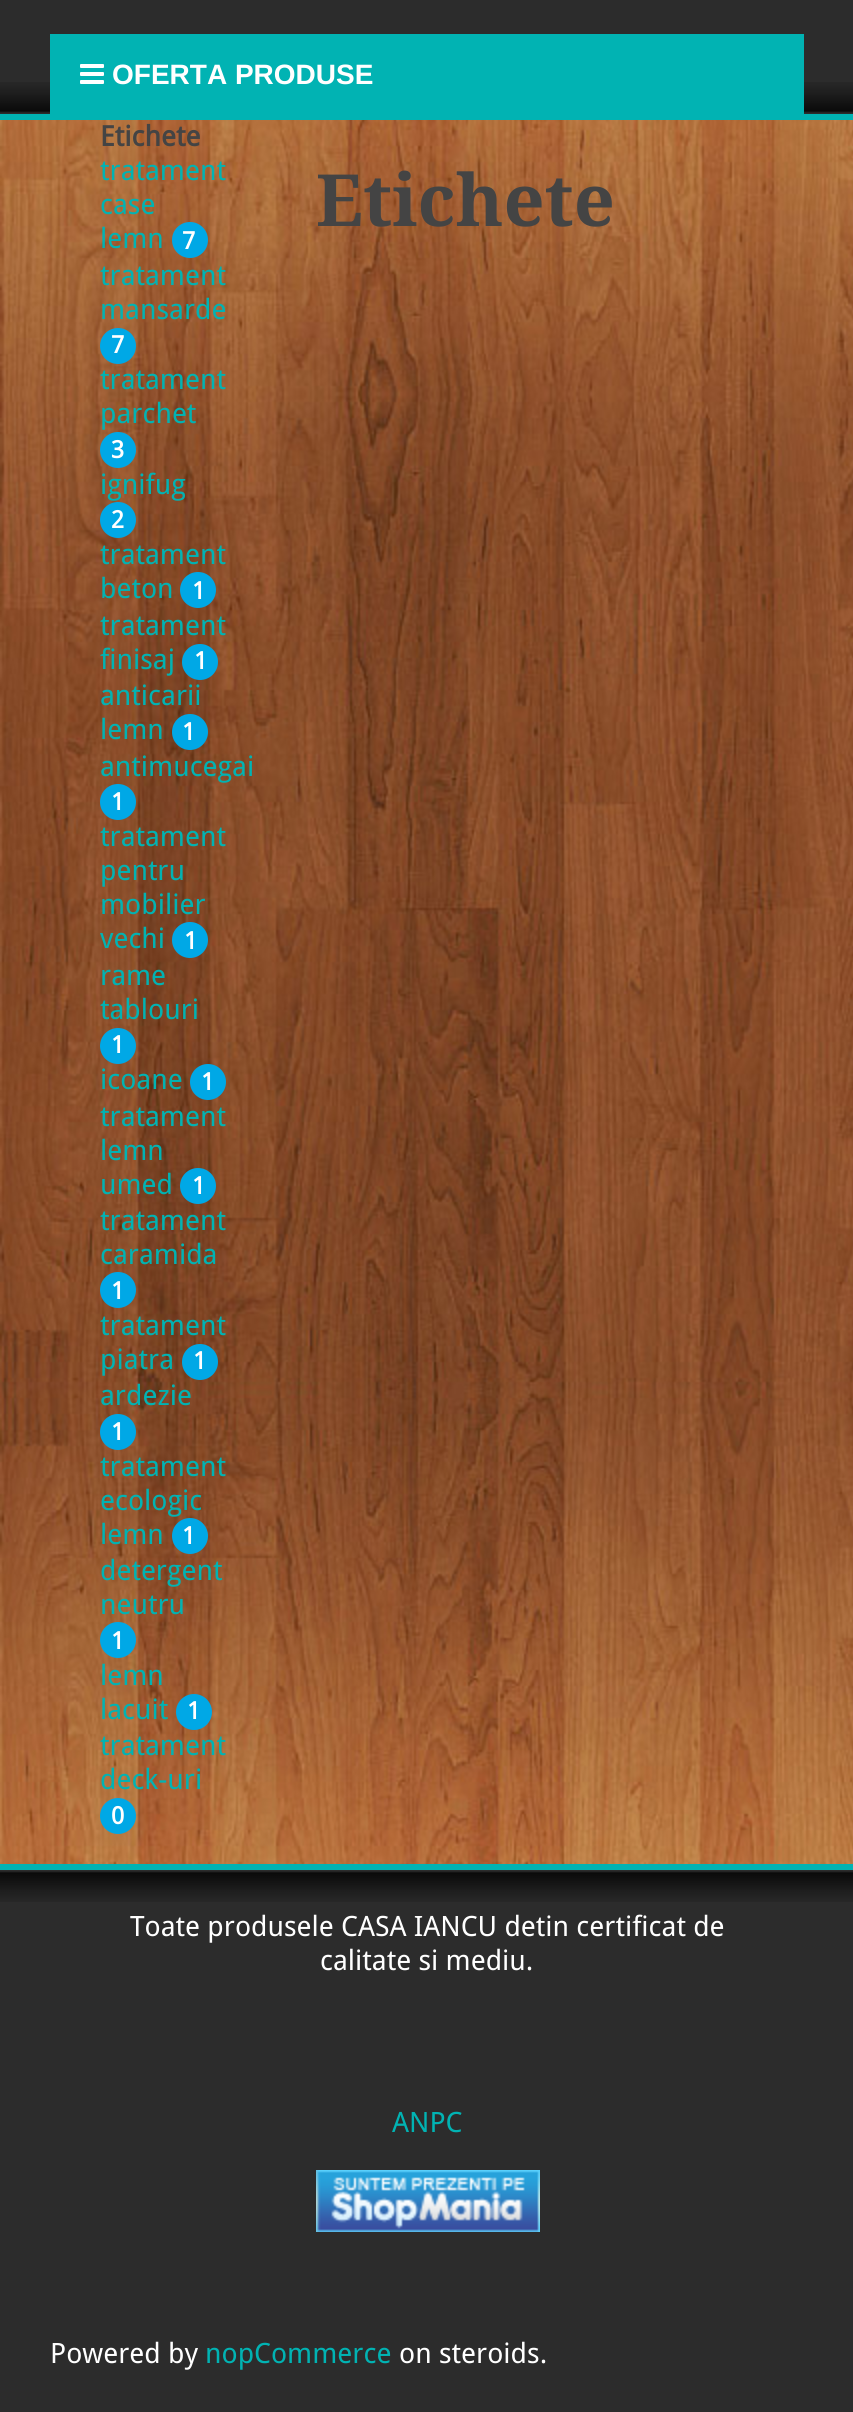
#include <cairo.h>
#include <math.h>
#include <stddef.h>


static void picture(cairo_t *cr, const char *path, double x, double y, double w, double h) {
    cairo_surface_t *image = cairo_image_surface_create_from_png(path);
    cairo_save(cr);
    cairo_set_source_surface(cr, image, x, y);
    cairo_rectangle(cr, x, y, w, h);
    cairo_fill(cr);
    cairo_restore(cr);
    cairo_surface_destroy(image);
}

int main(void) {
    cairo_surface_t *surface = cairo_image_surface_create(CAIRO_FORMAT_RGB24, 853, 2412);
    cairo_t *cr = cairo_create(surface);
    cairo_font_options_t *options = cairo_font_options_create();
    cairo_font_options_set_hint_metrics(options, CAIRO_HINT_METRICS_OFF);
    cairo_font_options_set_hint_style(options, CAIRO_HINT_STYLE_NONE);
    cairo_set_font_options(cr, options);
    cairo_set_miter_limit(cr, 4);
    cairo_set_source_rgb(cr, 1, 1, 1);
    cairo_paint(cr);
    picture(cr, "img1.png", 0, 120, 853, 1744);
    cairo_set_source_rgb(cr, 0.173, 0.173, 0.173);
    cairo_rectangle(cr, 0, 0, 853, 114);
    cairo_fill(cr);
    picture(cr, "img2.png", 0, 82, 853, 31);
    cairo_set_source_rgb(cr, 0.004, 0.702, 0.702);
    cairo_rectangle(cr, 0, 114, 853, 6);
    cairo_fill(cr);
    cairo_rectangle(cr, 50, 34, 754, 80);
    cairo_fill(cr);
    picture(cr, "img3.png", 80, 64, 24, 20);
    cairo_select_font_face(cr, "Liberation Sans", CAIRO_FONT_SLANT_NORMAL, CAIRO_FONT_WEIGHT_BOLD);
    cairo_set_font_size(cr, 28);
    cairo_set_source_rgb(cr, 1, 1, 1);
    cairo_move_to(cr, 112, 84);
    cairo_show_text(cr, "OFERTA PRODUSE");
    cairo_select_font_face(cr, "Droid Sans", CAIRO_FONT_SLANT_NORMAL, CAIRO_FONT_WEIGHT_BOLD);
    cairo_set_source_rgb(cr, 0.267, 0.267, 0.267);
    cairo_move_to(cr, 100, 146);
    cairo_show_text(cr, "Etichete");
    cairo_select_font_face(cr, "Droid Sans", CAIRO_FONT_SLANT_NORMAL, CAIRO_FONT_WEIGHT_NORMAL);
    cairo_set_source_rgb(cr, 0.004, 0.702, 0.702);
    cairo_move_to(cr, 100, 180);
    cairo_show_text(cr, "tratament");
    cairo_move_to(cr, 100, 214);
    cairo_show_text(cr, "case");
    cairo_move_to(cr, 100, 248);
    cairo_show_text(cr, "lemn");
    cairo_set_source_rgb(cr, 0, 0.659, 0.902);
    cairo_new_path(cr);
    cairo_arc(cr, 190, 240, 18, 0, 2 * M_PI);
    cairo_fill(cr);
    cairo_select_font_face(cr, "Droid Sans", CAIRO_FONT_SLANT_NORMAL, CAIRO_FONT_WEIGHT_BOLD);
    cairo_set_font_size(cr, 24);
    cairo_set_source_rgb(cr, 1, 1, 1);
    cairo_move_to(cr, 182, 249);
    cairo_show_text(cr, "7");
    cairo_select_font_face(cr, "Droid Sans", CAIRO_FONT_SLANT_NORMAL, CAIRO_FONT_WEIGHT_NORMAL);
    cairo_set_font_size(cr, 28);
    cairo_set_source_rgb(cr, 0.004, 0.702, 0.702);
    cairo_move_to(cr, 100, 285);
    cairo_show_text(cr, "tratament");
    cairo_move_to(cr, 100, 319);
    cairo_show_text(cr, "mansarde");
    cairo_set_source_rgb(cr, 0, 0.659, 0.902);
    cairo_new_path(cr);
    cairo_arc(cr, 118, 346, 18, 0, 2 * M_PI);
    cairo_fill(cr);
    cairo_select_font_face(cr, "Droid Sans", CAIRO_FONT_SLANT_NORMAL, CAIRO_FONT_WEIGHT_BOLD);
    cairo_set_font_size(cr, 24);
    cairo_set_source_rgb(cr, 1, 1, 1);
    cairo_move_to(cr, 111, 353);
    cairo_show_text(cr, "7");
    cairo_select_font_face(cr, "Droid Sans", CAIRO_FONT_SLANT_NORMAL, CAIRO_FONT_WEIGHT_NORMAL);
    cairo_set_font_size(cr, 28);
    cairo_set_source_rgb(cr, 0.004, 0.702, 0.702);
    cairo_move_to(cr, 100, 389);
    cairo_show_text(cr, "tratament");
    cairo_move_to(cr, 100, 423);
    cairo_show_text(cr, "parchet");
    cairo_set_source_rgb(cr, 0, 0.659, 0.902);
    cairo_new_path(cr);
    cairo_arc(cr, 118, 450, 18, 0, 2 * M_PI);
    cairo_fill(cr);
    cairo_select_font_face(cr, "Droid Sans", CAIRO_FONT_SLANT_NORMAL, CAIRO_FONT_WEIGHT_BOLD);
    cairo_set_font_size(cr, 24);
    cairo_set_source_rgb(cr, 1, 1, 1);
    cairo_move_to(cr, 111, 458);
    cairo_show_text(cr, "3");
    cairo_select_font_face(cr, "Droid Sans", CAIRO_FONT_SLANT_NORMAL, CAIRO_FONT_WEIGHT_NORMAL);
    cairo_set_font_size(cr, 28);
    cairo_set_source_rgb(cr, 0.004, 0.702, 0.702);
    cairo_move_to(cr, 100, 494);
    cairo_show_text(cr, "ignifug");
    cairo_set_source_rgb(cr, 0, 0.659, 0.902);
    cairo_new_path(cr);
    cairo_arc(cr, 118, 520, 18, 0, 2 * M_PI);
    cairo_fill(cr);
    cairo_select_font_face(cr, "Droid Sans", CAIRO_FONT_SLANT_NORMAL, CAIRO_FONT_WEIGHT_BOLD);
    cairo_set_font_size(cr, 24);
    cairo_set_source_rgb(cr, 1, 1, 1);
    cairo_move_to(cr, 111, 528);
    cairo_show_text(cr, "2");
    cairo_select_font_face(cr, "Droid Sans", CAIRO_FONT_SLANT_NORMAL, CAIRO_FONT_WEIGHT_NORMAL);
    cairo_set_font_size(cr, 28);
    cairo_set_source_rgb(cr, 0.004, 0.702, 0.702);
    cairo_move_to(cr, 100, 564);
    cairo_show_text(cr, "tratament");
    cairo_move_to(cr, 100, 598);
    cairo_show_text(cr, "beton");
    cairo_set_source_rgb(cr, 0, 0.659, 0.902);
    cairo_new_path(cr);
    cairo_arc(cr, 198, 590, 18, 0, 2 * M_PI);
    cairo_fill(cr);
    cairo_select_font_face(cr, "Droid Sans", CAIRO_FONT_SLANT_NORMAL, CAIRO_FONT_WEIGHT_BOLD);
    cairo_set_font_size(cr, 24);
    cairo_set_source_rgb(cr, 1, 1, 1);
    cairo_move_to(cr, 192, 599);
    cairo_show_text(cr, "1");
    cairo_select_font_face(cr, "Droid Sans", CAIRO_FONT_SLANT_NORMAL, CAIRO_FONT_WEIGHT_NORMAL);
    cairo_set_font_size(cr, 28);
    cairo_set_source_rgb(cr, 0.004, 0.702, 0.702);
    cairo_move_to(cr, 100, 635);
    cairo_show_text(cr, "tratament");
    cairo_move_to(cr, 100, 669);
    cairo_show_text(cr, "finisaj");
    cairo_set_source_rgb(cr, 0, 0.659, 0.902);
    cairo_new_path(cr);
    cairo_arc(cr, 200, 662, 18, 0, 2 * M_PI);
    cairo_fill(cr);
    cairo_select_font_face(cr, "Droid Sans", CAIRO_FONT_SLANT_NORMAL, CAIRO_FONT_WEIGHT_BOLD);
    cairo_set_font_size(cr, 24);
    cairo_set_source_rgb(cr, 1, 1, 1);
    cairo_move_to(cr, 194, 669);
    cairo_show_text(cr, "1");
    cairo_select_font_face(cr, "Droid Sans", CAIRO_FONT_SLANT_NORMAL, CAIRO_FONT_WEIGHT_NORMAL);
    cairo_set_font_size(cr, 28);
    cairo_set_source_rgb(cr, 0.004, 0.702, 0.702);
    cairo_move_to(cr, 100, 705);
    cairo_show_text(cr, "anticarii");
    cairo_move_to(cr, 100, 739);
    cairo_show_text(cr, "lemn");
    cairo_set_source_rgb(cr, 0, 0.659, 0.902);
    cairo_new_path(cr);
    cairo_arc(cr, 190, 732, 18, 0, 2 * M_PI);
    cairo_fill(cr);
    cairo_select_font_face(cr, "Droid Sans", CAIRO_FONT_SLANT_NORMAL, CAIRO_FONT_WEIGHT_BOLD);
    cairo_set_font_size(cr, 24);
    cairo_set_source_rgb(cr, 1, 1, 1);
    cairo_move_to(cr, 182, 740);
    cairo_show_text(cr, "1");
    cairo_select_font_face(cr, "Droid Sans", CAIRO_FONT_SLANT_NORMAL, CAIRO_FONT_WEIGHT_NORMAL);
    cairo_set_font_size(cr, 28);
    cairo_set_source_rgb(cr, 0.004, 0.702, 0.702);
    cairo_move_to(cr, 100, 776);
    cairo_show_text(cr, "antimucegai");
    cairo_set_source_rgb(cr, 0, 0.659, 0.902);
    cairo_new_path(cr);
    cairo_arc(cr, 118, 802, 18, 0, 2 * M_PI);
    cairo_fill(cr);
    cairo_select_font_face(cr, "Droid Sans", CAIRO_FONT_SLANT_NORMAL, CAIRO_FONT_WEIGHT_BOLD);
    cairo_set_font_size(cr, 24);
    cairo_set_source_rgb(cr, 1, 1, 1);
    cairo_move_to(cr, 111, 810);
    cairo_show_text(cr, "1");
    cairo_select_font_face(cr, "Droid Sans", CAIRO_FONT_SLANT_NORMAL, CAIRO_FONT_WEIGHT_NORMAL);
    cairo_set_font_size(cr, 28);
    cairo_set_source_rgb(cr, 0.004, 0.702, 0.702);
    cairo_move_to(cr, 100, 846);
    cairo_show_text(cr, "tratament");
    cairo_move_to(cr, 100, 880);
    cairo_show_text(cr, "pentru");
    cairo_move_to(cr, 100, 914);
    cairo_show_text(cr, "mobilier");
    cairo_move_to(cr, 100, 948);
    cairo_show_text(cr, "vechi");
    cairo_set_source_rgb(cr, 0, 0.659, 0.902);
    cairo_new_path(cr);
    cairo_arc(cr, 190, 940, 18, 0, 2 * M_PI);
    cairo_fill(cr);
    cairo_select_font_face(cr, "Droid Sans", CAIRO_FONT_SLANT_NORMAL, CAIRO_FONT_WEIGHT_BOLD);
    cairo_set_font_size(cr, 24);
    cairo_set_source_rgb(cr, 1, 1, 1);
    cairo_move_to(cr, 184, 949);
    cairo_show_text(cr, "1");
    cairo_select_font_face(cr, "Droid Sans", CAIRO_FONT_SLANT_NORMAL, CAIRO_FONT_WEIGHT_NORMAL);
    cairo_set_font_size(cr, 28);
    cairo_set_source_rgb(cr, 0.004, 0.702, 0.702);
    cairo_move_to(cr, 100, 985);
    cairo_show_text(cr, "rame");
    cairo_move_to(cr, 100, 1019);
    cairo_show_text(cr, "tablouri");
    cairo_set_source_rgb(cr, 0, 0.659, 0.902);
    cairo_new_path(cr);
    cairo_arc(cr, 118, 1046, 18, 0, 2 * M_PI);
    cairo_fill(cr);
    cairo_select_font_face(cr, "Droid Sans", CAIRO_FONT_SLANT_NORMAL, CAIRO_FONT_WEIGHT_BOLD);
    cairo_set_font_size(cr, 24);
    cairo_set_source_rgb(cr, 1, 1, 1);
    cairo_move_to(cr, 111, 1053);
    cairo_show_text(cr, "1");
    cairo_select_font_face(cr, "Droid Sans", CAIRO_FONT_SLANT_NORMAL, CAIRO_FONT_WEIGHT_NORMAL);
    cairo_set_font_size(cr, 28);
    cairo_set_source_rgb(cr, 0.004, 0.702, 0.702);
    cairo_move_to(cr, 100, 1089);
    cairo_show_text(cr, "icoane");
    cairo_set_source_rgb(cr, 0, 0.659, 0.902);
    cairo_new_path(cr);
    cairo_arc(cr, 208, 1082, 18, 0, 2 * M_PI);
    cairo_fill(cr);
    cairo_select_font_face(cr, "Droid Sans", CAIRO_FONT_SLANT_NORMAL, CAIRO_FONT_WEIGHT_BOLD);
    cairo_set_font_size(cr, 24);
    cairo_set_source_rgb(cr, 1, 1, 1);
    cairo_move_to(cr, 201, 1090);
    cairo_show_text(cr, "1");
    cairo_select_font_face(cr, "Droid Sans", CAIRO_FONT_SLANT_NORMAL, CAIRO_FONT_WEIGHT_NORMAL);
    cairo_set_font_size(cr, 28);
    cairo_set_source_rgb(cr, 0.004, 0.702, 0.702);
    cairo_move_to(cr, 100, 1126);
    cairo_show_text(cr, "tratament");
    cairo_move_to(cr, 100, 1160);
    cairo_show_text(cr, "lemn");
    cairo_move_to(cr, 100, 1194);
    cairo_show_text(cr, "umed");
    cairo_set_source_rgb(cr, 0, 0.659, 0.902);
    cairo_new_path(cr);
    cairo_arc(cr, 198, 1186, 18, 0, 2 * M_PI);
    cairo_fill(cr);
    cairo_select_font_face(cr, "Droid Sans", CAIRO_FONT_SLANT_NORMAL, CAIRO_FONT_WEIGHT_BOLD);
    cairo_set_font_size(cr, 24);
    cairo_set_source_rgb(cr, 1, 1, 1);
    cairo_move_to(cr, 192, 1194);
    cairo_show_text(cr, "1");
    cairo_select_font_face(cr, "Droid Sans", CAIRO_FONT_SLANT_NORMAL, CAIRO_FONT_WEIGHT_NORMAL);
    cairo_set_font_size(cr, 28);
    cairo_set_source_rgb(cr, 0.004, 0.702, 0.702);
    cairo_move_to(cr, 100, 1230);
    cairo_show_text(cr, "tratament");
    cairo_move_to(cr, 100, 1264);
    cairo_show_text(cr, "caramida");
    cairo_set_source_rgb(cr, 0, 0.659, 0.902);
    cairo_new_path(cr);
    cairo_arc(cr, 118, 1290, 18, 0, 2 * M_PI);
    cairo_fill(cr);
    cairo_select_font_face(cr, "Droid Sans", CAIRO_FONT_SLANT_NORMAL, CAIRO_FONT_WEIGHT_BOLD);
    cairo_set_font_size(cr, 24);
    cairo_set_source_rgb(cr, 1, 1, 1);
    cairo_move_to(cr, 111, 1299);
    cairo_show_text(cr, "1");
    cairo_select_font_face(cr, "Droid Sans", CAIRO_FONT_SLANT_NORMAL, CAIRO_FONT_WEIGHT_NORMAL);
    cairo_set_font_size(cr, 28);
    cairo_set_source_rgb(cr, 0.004, 0.702, 0.702);
    cairo_move_to(cr, 100, 1335);
    cairo_show_text(cr, "tratament");
    cairo_move_to(cr, 100, 1369);
    cairo_show_text(cr, "piatra");
    cairo_set_source_rgb(cr, 0, 0.659, 0.902);
    cairo_new_path(cr);
    cairo_arc(cr, 200, 1362, 18, 0, 2 * M_PI);
    cairo_fill(cr);
    cairo_select_font_face(cr, "Droid Sans", CAIRO_FONT_SLANT_NORMAL, CAIRO_FONT_WEIGHT_BOLD);
    cairo_set_font_size(cr, 24);
    cairo_set_source_rgb(cr, 1, 1, 1);
    cairo_move_to(cr, 193, 1369);
    cairo_show_text(cr, "1");
    cairo_select_font_face(cr, "Droid Sans", CAIRO_FONT_SLANT_NORMAL, CAIRO_FONT_WEIGHT_NORMAL);
    cairo_set_font_size(cr, 28);
    cairo_set_source_rgb(cr, 0.004, 0.702, 0.702);
    cairo_move_to(cr, 100, 1405);
    cairo_show_text(cr, "ardezie");
    cairo_set_source_rgb(cr, 0, 0.659, 0.902);
    cairo_new_path(cr);
    cairo_arc(cr, 118, 1432, 18, 0, 2 * M_PI);
    cairo_fill(cr);
    cairo_select_font_face(cr, "Droid Sans", CAIRO_FONT_SLANT_NORMAL, CAIRO_FONT_WEIGHT_BOLD);
    cairo_set_font_size(cr, 24);
    cairo_set_source_rgb(cr, 1, 1, 1);
    cairo_move_to(cr, 111, 1440);
    cairo_show_text(cr, "1");
    cairo_select_font_face(cr, "Droid Sans", CAIRO_FONT_SLANT_NORMAL, CAIRO_FONT_WEIGHT_NORMAL);
    cairo_set_font_size(cr, 28);
    cairo_set_source_rgb(cr, 0.004, 0.702, 0.702);
    cairo_move_to(cr, 100, 1476);
    cairo_show_text(cr, "tratament");
    cairo_move_to(cr, 100, 1510);
    cairo_show_text(cr, "ecologic");
    cairo_move_to(cr, 100, 1544);
    cairo_show_text(cr, "lemn");
    cairo_set_source_rgb(cr, 0, 0.659, 0.902);
    cairo_new_path(cr);
    cairo_arc(cr, 190, 1536, 18, 0, 2 * M_PI);
    cairo_fill(cr);
    cairo_select_font_face(cr, "Droid Sans", CAIRO_FONT_SLANT_NORMAL, CAIRO_FONT_WEIGHT_BOLD);
    cairo_set_font_size(cr, 24);
    cairo_set_source_rgb(cr, 1, 1, 1);
    cairo_move_to(cr, 182, 1544);
    cairo_show_text(cr, "1");
    cairo_select_font_face(cr, "Droid Sans", CAIRO_FONT_SLANT_NORMAL, CAIRO_FONT_WEIGHT_NORMAL);
    cairo_set_font_size(cr, 28);
    cairo_set_source_rgb(cr, 0.004, 0.702, 0.702);
    cairo_move_to(cr, 100, 1580);
    cairo_show_text(cr, "detergent");
    cairo_move_to(cr, 100, 1614);
    cairo_show_text(cr, "neutru");
    cairo_set_source_rgb(cr, 0, 0.659, 0.902);
    cairo_new_path(cr);
    cairo_arc(cr, 118, 1640, 18, 0, 2 * M_PI);
    cairo_fill(cr);
    cairo_select_font_face(cr, "Droid Sans", CAIRO_FONT_SLANT_NORMAL, CAIRO_FONT_WEIGHT_BOLD);
    cairo_set_font_size(cr, 24);
    cairo_set_source_rgb(cr, 1, 1, 1);
    cairo_move_to(cr, 111, 1649);
    cairo_show_text(cr, "1");
    cairo_select_font_face(cr, "Droid Sans", CAIRO_FONT_SLANT_NORMAL, CAIRO_FONT_WEIGHT_NORMAL);
    cairo_set_font_size(cr, 28);
    cairo_set_source_rgb(cr, 0.004, 0.702, 0.702);
    cairo_move_to(cr, 100, 1685);
    cairo_show_text(cr, "lemn");
    cairo_move_to(cr, 100, 1719);
    cairo_show_text(cr, "lacuit");
    cairo_set_source_rgb(cr, 0, 0.659, 0.902);
    cairo_new_path(cr);
    cairo_arc(cr, 194, 1712, 18, 0, 2 * M_PI);
    cairo_fill(cr);
    cairo_select_font_face(cr, "Droid Sans", CAIRO_FONT_SLANT_NORMAL, CAIRO_FONT_WEIGHT_BOLD);
    cairo_set_font_size(cr, 24);
    cairo_set_source_rgb(cr, 1, 1, 1);
    cairo_move_to(cr, 187, 1719);
    cairo_show_text(cr, "1");
    cairo_select_font_face(cr, "Droid Sans", CAIRO_FONT_SLANT_NORMAL, CAIRO_FONT_WEIGHT_NORMAL);
    cairo_set_font_size(cr, 28);
    cairo_set_source_rgb(cr, 0.004, 0.702, 0.702);
    cairo_move_to(cr, 100, 1755);
    cairo_show_text(cr, "tratament");
    cairo_move_to(cr, 100, 1789);
    cairo_show_text(cr, "deck-uri");
    cairo_set_source_rgb(cr, 0, 0.659, 0.902);
    cairo_new_path(cr);
    cairo_arc(cr, 118, 1816, 18, 0, 2 * M_PI);
    cairo_fill(cr);
    cairo_select_font_face(cr, "Droid Sans", CAIRO_FONT_SLANT_NORMAL, CAIRO_FONT_WEIGHT_BOLD);
    cairo_set_font_size(cr, 24);
    cairo_set_source_rgb(cr, 1, 1, 1);
    cairo_move_to(cr, 111, 1824);
    cairo_show_text(cr, "0");
    cairo_select_font_face(cr, "Droid Serif", CAIRO_FONT_SLANT_NORMAL, CAIRO_FONT_WEIGHT_BOLD);
    cairo_set_font_size(cr, 72);
    cairo_set_source_rgb(cr, 0.267, 0.267, 0.267);
    cairo_move_to(cr, 316, 226);
    cairo_show_text(cr, "Etichete");
    cairo_set_source_rgb(cr, 0.173, 0.173, 0.173);
    cairo_rectangle(cr, 0, 1870, 853, 542);
    cairo_fill(cr);
    picture(cr, "img4.png", 0, 1871, 853, 31);
    cairo_set_source_rgb(cr, 0.004, 0.702, 0.702);
    cairo_rectangle(cr, 0, 1864, 853, 6);
    cairo_fill(cr);
    cairo_select_font_face(cr, "Droid Sans", CAIRO_FONT_SLANT_NORMAL, CAIRO_FONT_WEIGHT_NORMAL);
    cairo_set_font_size(cr, 28);
    cairo_set_source_rgb(cr, 1, 1, 1);
    cairo_move_to(cr, 130, 1936);
    cairo_show_text(cr, "Toate produsele CASA IANCU detin certificat de");
    cairo_move_to(cr, 320, 1970);
    cairo_show_text(cr, "calitate si mediu.");
    cairo_set_source_rgb(cr, 0.004, 0.702, 0.702);
    cairo_move_to(cr, 392, 2132);
    cairo_show_text(cr, "ANPC");
    picture(cr, "img5.png", 316, 2170, 224, 62);
    cairo_set_source_rgb(cr, 1, 1, 1);
    cairo_move_to(cr, 50, 2363);
    cairo_show_text(cr, "Powered by");
    cairo_set_source_rgb(cr, 0.004, 0.702, 0.702);
    cairo_move_to(cr, 205, 2363);
    cairo_show_text(cr, "nopCommerce");
    cairo_set_source_rgb(cr, 1, 1, 1);
    cairo_move_to(cr, 399, 2363);
    cairo_show_text(cr, "on steroids.");
    cairo_surface_write_to_png(surface, "page.png");
    cairo_font_options_destroy(options);
    cairo_destroy(cr);
    cairo_surface_destroy(surface);
    return 0;
}
